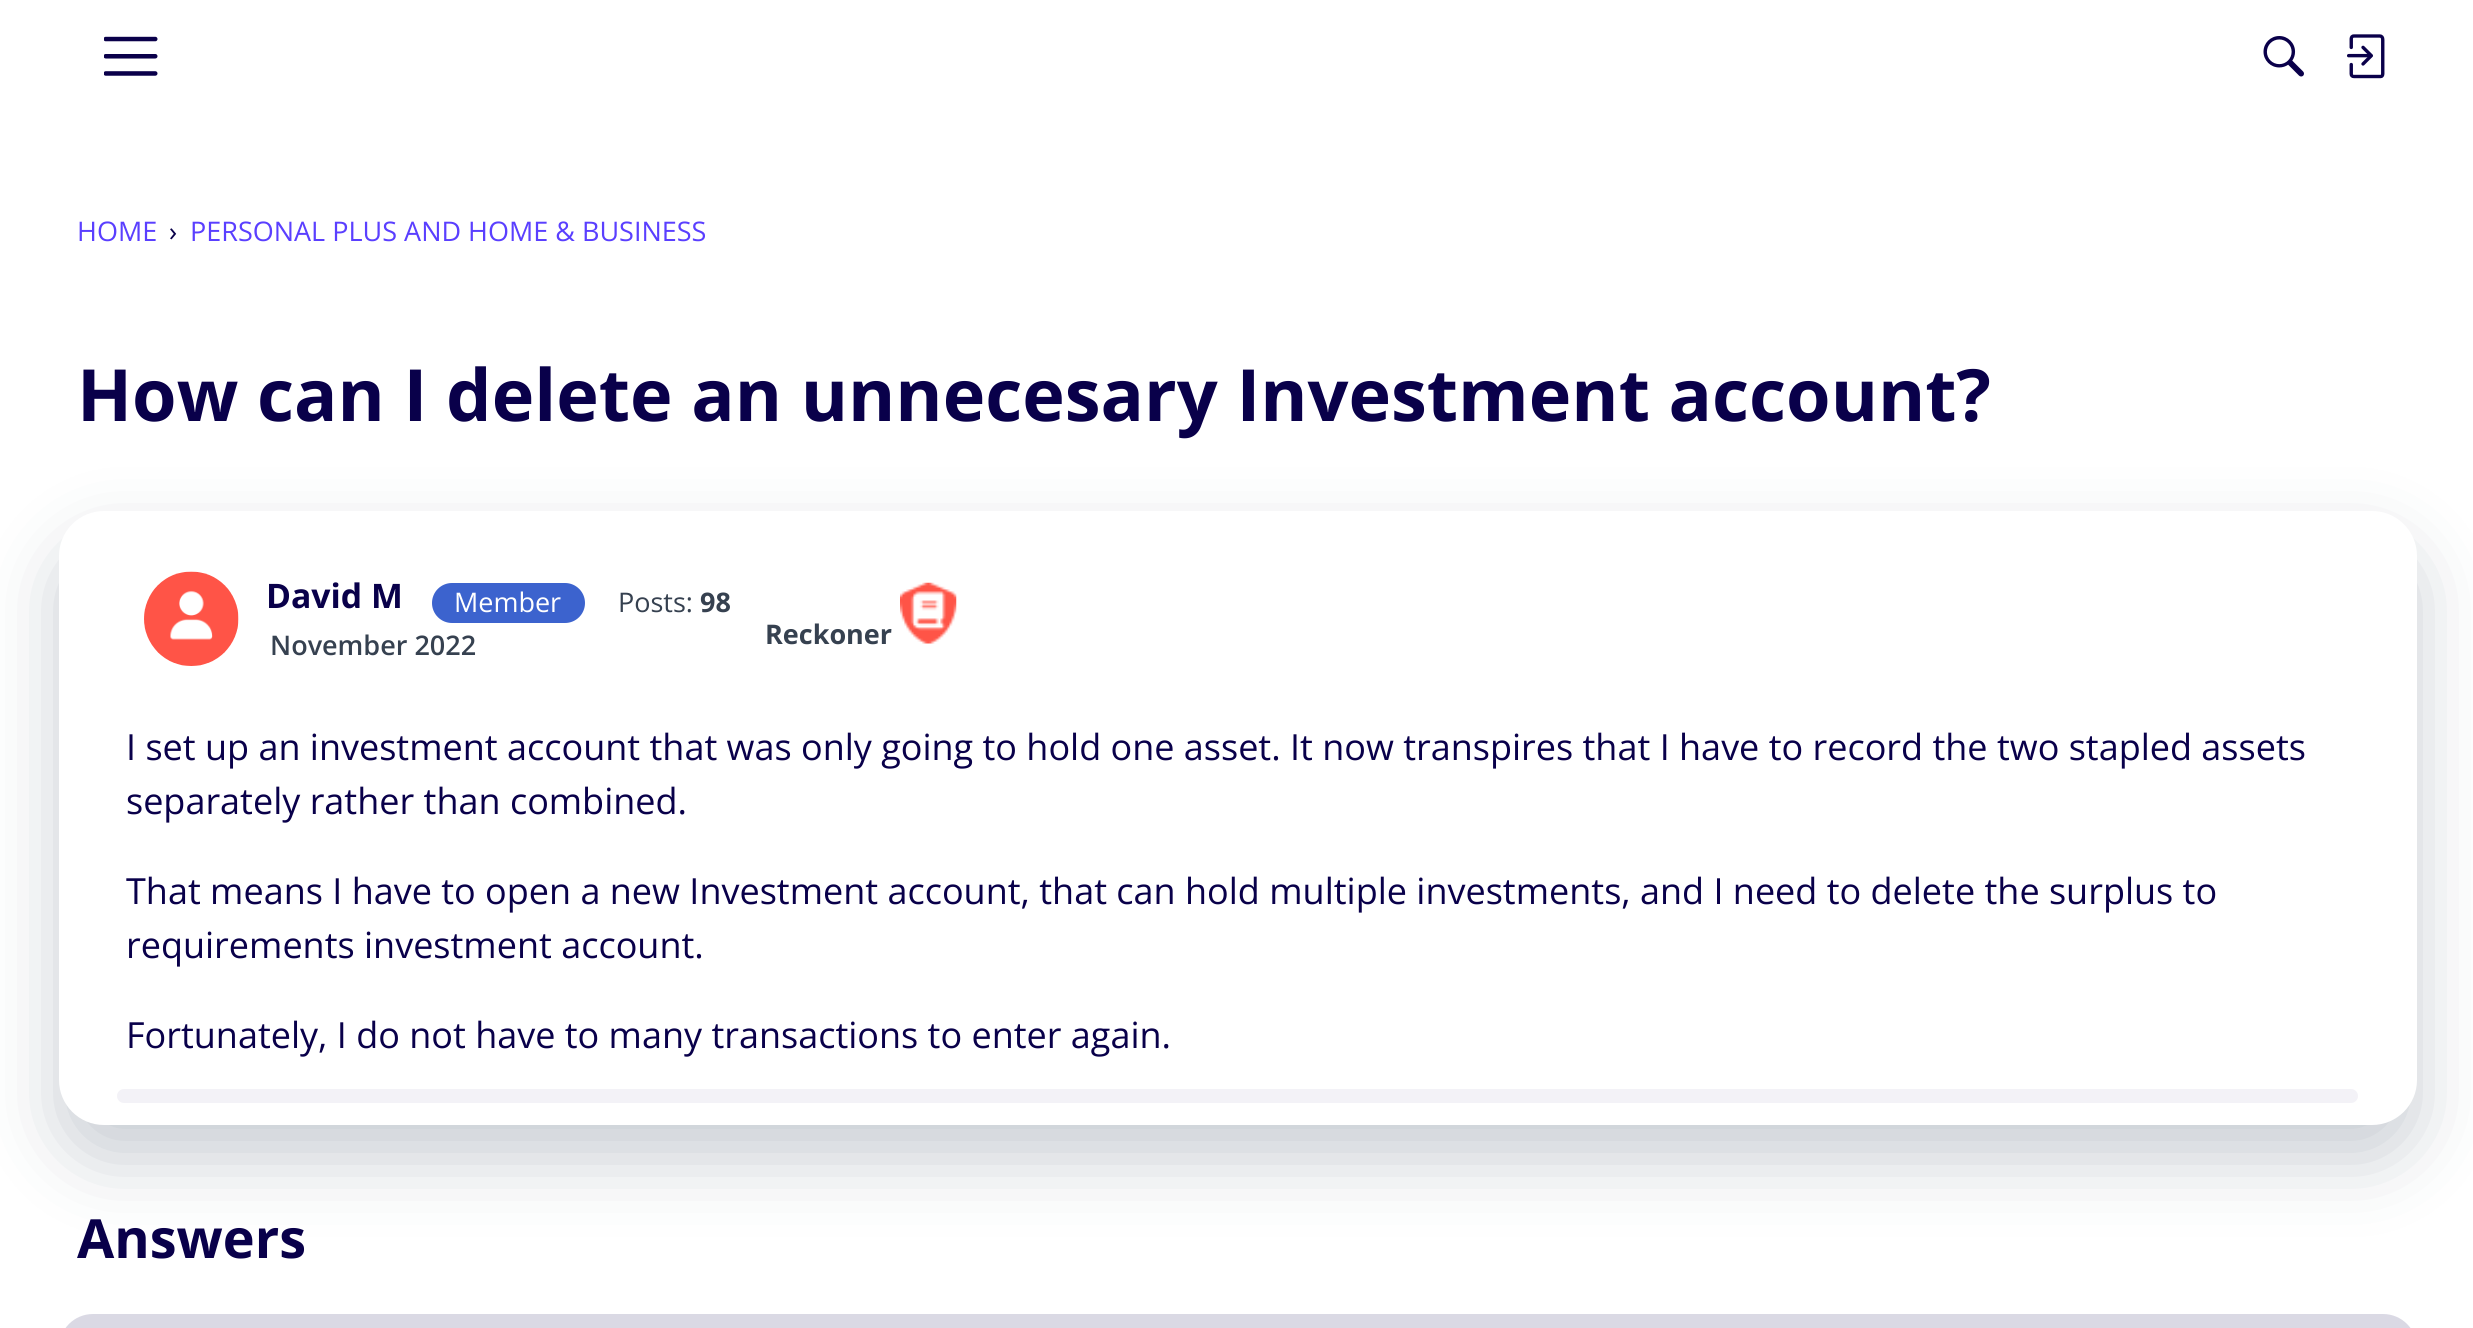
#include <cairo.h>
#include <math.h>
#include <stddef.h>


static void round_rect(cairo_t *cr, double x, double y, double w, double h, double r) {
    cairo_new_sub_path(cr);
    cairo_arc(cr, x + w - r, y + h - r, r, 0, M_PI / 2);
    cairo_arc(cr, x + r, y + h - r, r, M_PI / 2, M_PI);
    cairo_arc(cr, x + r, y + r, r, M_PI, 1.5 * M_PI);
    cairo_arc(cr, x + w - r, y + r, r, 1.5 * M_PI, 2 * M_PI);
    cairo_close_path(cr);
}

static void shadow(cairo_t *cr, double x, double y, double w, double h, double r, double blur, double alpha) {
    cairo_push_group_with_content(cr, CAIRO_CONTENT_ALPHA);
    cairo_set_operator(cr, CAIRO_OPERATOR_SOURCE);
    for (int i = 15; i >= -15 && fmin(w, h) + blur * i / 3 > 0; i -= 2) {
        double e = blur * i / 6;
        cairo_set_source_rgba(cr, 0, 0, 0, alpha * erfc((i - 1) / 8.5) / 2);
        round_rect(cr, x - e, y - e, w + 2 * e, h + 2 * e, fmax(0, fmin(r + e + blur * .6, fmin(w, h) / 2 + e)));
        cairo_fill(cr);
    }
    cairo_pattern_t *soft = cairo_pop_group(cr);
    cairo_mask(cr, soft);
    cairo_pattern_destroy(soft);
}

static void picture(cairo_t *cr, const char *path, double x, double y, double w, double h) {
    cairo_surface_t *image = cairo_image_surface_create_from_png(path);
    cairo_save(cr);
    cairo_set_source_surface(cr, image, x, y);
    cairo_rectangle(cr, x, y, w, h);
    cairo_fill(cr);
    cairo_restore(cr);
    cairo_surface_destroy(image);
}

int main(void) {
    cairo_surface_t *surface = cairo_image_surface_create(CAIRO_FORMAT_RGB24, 2473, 1328);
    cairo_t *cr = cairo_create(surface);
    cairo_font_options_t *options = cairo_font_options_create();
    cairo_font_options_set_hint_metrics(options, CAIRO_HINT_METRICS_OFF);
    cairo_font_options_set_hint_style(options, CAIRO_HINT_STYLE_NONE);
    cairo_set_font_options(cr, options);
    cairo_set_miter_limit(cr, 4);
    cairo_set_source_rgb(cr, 1, 1, 1);
    cairo_paint(cr);
    picture(cr, "img1.png", 104, 36, 54, 40);
    picture(cr, "img2.png", 2263, 36, 41, 41);
    picture(cr, "img3.png", 2347, 34, 38, 45);
    cairo_select_font_face(cr, "Open Sans", CAIRO_FONT_SLANT_NORMAL, CAIRO_FONT_WEIGHT_NORMAL);
    cairo_set_font_size(cr, 27);
    cairo_set_source_rgb(cr, 0.353, 0.247, 1);
    cairo_move_to(cr, 77, 241);
    cairo_show_text(cr, "HOME");
    cairo_set_source_rgb(cr, 0.039, 0, 0.29);
    cairo_move_to(cr, 169, 241);
    cairo_show_text(cr, "›");
    cairo_set_source_rgb(cr, 0.353, 0.247, 1);
    cairo_move_to(cr, 190, 241);
    cairo_show_text(cr, "PERSONAL PLUS AND HOME & BUSINESS");
    cairo_select_font_face(cr, "Open Sans", CAIRO_FONT_SLANT_NORMAL, CAIRO_FONT_WEIGHT_BOLD);
    cairo_set_font_size(cr, 72);
    cairo_set_source_rgb(cr, 0.039, 0, 0.29);
    cairo_move_to(cr, 77, 421);
    cairo_show_text(cr, "How can I delete an unnecesary Investment account?");
    cairo_set_source_rgb(cr, 0.788, 0.808, 0.831);
    shadow(cr, 59, 545, 2358, 614, 45, 36, 1);
    cairo_set_source_rgb(cr, 1, 1, 1);
    round_rect(cr, 59, 511, 2358, 614, 45);
    cairo_fill(cr);
    picture(cr, "img4.png", 144, 571, 95, 95);
    cairo_set_font_size(cr, 33.75);
    cairo_set_source_rgb(cr, 0.039, 0, 0.29);
    cairo_move_to(cr, 266, 608);
    cairo_show_text(cr, "David M");
    cairo_set_source_rgb(cr, 0.235, 0.388, 0.808);
    round_rect(cr, 432, 583, 153, 40, 20);
    cairo_fill(cr);
    cairo_select_font_face(cr, "Open Sans", CAIRO_FONT_SLANT_NORMAL, CAIRO_FONT_WEIGHT_NORMAL);
    cairo_set_font_size(cr, 27);
    cairo_set_source_rgb(cr, 1, 1, 1);
    cairo_move_to(cr, 454, 612);
    cairo_show_text(cr, "Member");
    cairo_set_source_rgb(cr, 0.212, 0.255, 0.314);
    cairo_move_to(cr, 618, 612);
    cairo_show_text(cr, "Posts:");
    cairo_select_font_face(cr, "Open Sans", CAIRO_FONT_SLANT_NORMAL, CAIRO_FONT_WEIGHT_BOLD);
    cairo_move_to(cr, 700, 612);
    cairo_show_text(cr, "98");
    cairo_move_to(cr, 765, 644);
    cairo_show_text(cr, "Reckoner");
    picture(cr, "img5.png", 900, 582, 57, 62);
    cairo_select_font_face(cr, "Open Sans SemiBold", CAIRO_FONT_SLANT_NORMAL, CAIRO_FONT_WEIGHT_NORMAL);
    cairo_move_to(cr, 270, 655);
    cairo_show_text(cr, "November 2022");
    cairo_select_font_face(cr, "Open Sans", CAIRO_FONT_SLANT_NORMAL, CAIRO_FONT_WEIGHT_NORMAL);
    cairo_set_font_size(cr, 36);
    cairo_set_source_rgb(cr, 0.039, 0, 0.29);
    cairo_move_to(cr, 126, 760);
    cairo_show_text(cr, "I set up an investment account that was only going to hold one asset. It now transpires that I have to record the two stapled assets");
    cairo_move_to(cr, 126, 814);
    cairo_show_text(cr, "separately rather than combined.");
    cairo_move_to(cr, 126, 904);
    cairo_show_text(cr, "That means I have to open a new Investment account, that can hold multiple investments, and I need to delete the surplus to");
    cairo_move_to(cr, 126, 958);
    cairo_show_text(cr, "requirements investment account.");
    cairo_move_to(cr, 126, 1048);
    cairo_show_text(cr, "Fortunately, I do not have to many transactions to enter again.");
    cairo_set_source_rgb(cr, 0.953, 0.949, 0.965);
    round_rect(cr, 117, 1089, 2241, 14, 7);
    cairo_fill(cr);
    cairo_select_font_face(cr, "Open Sans", CAIRO_FONT_SLANT_NORMAL, CAIRO_FONT_WEIGHT_BOLD);
    cairo_set_font_size(cr, 54);
    cairo_set_source_rgb(cr, 0.039, 0, 0.29);
    cairo_move_to(cr, 77, 1258);
    cairo_show_text(cr, "Answers");
    cairo_set_source_rgb(cr, 0.855, 0.851, 0.894);
    round_rect(cr, 59, 1314, 2358, 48, 34);
    cairo_fill(cr);
    cairo_surface_write_to_png(surface, "page.png");
    cairo_font_options_destroy(options);
    cairo_destroy(cr);
    cairo_surface_destroy(surface);
    return 0;
}
